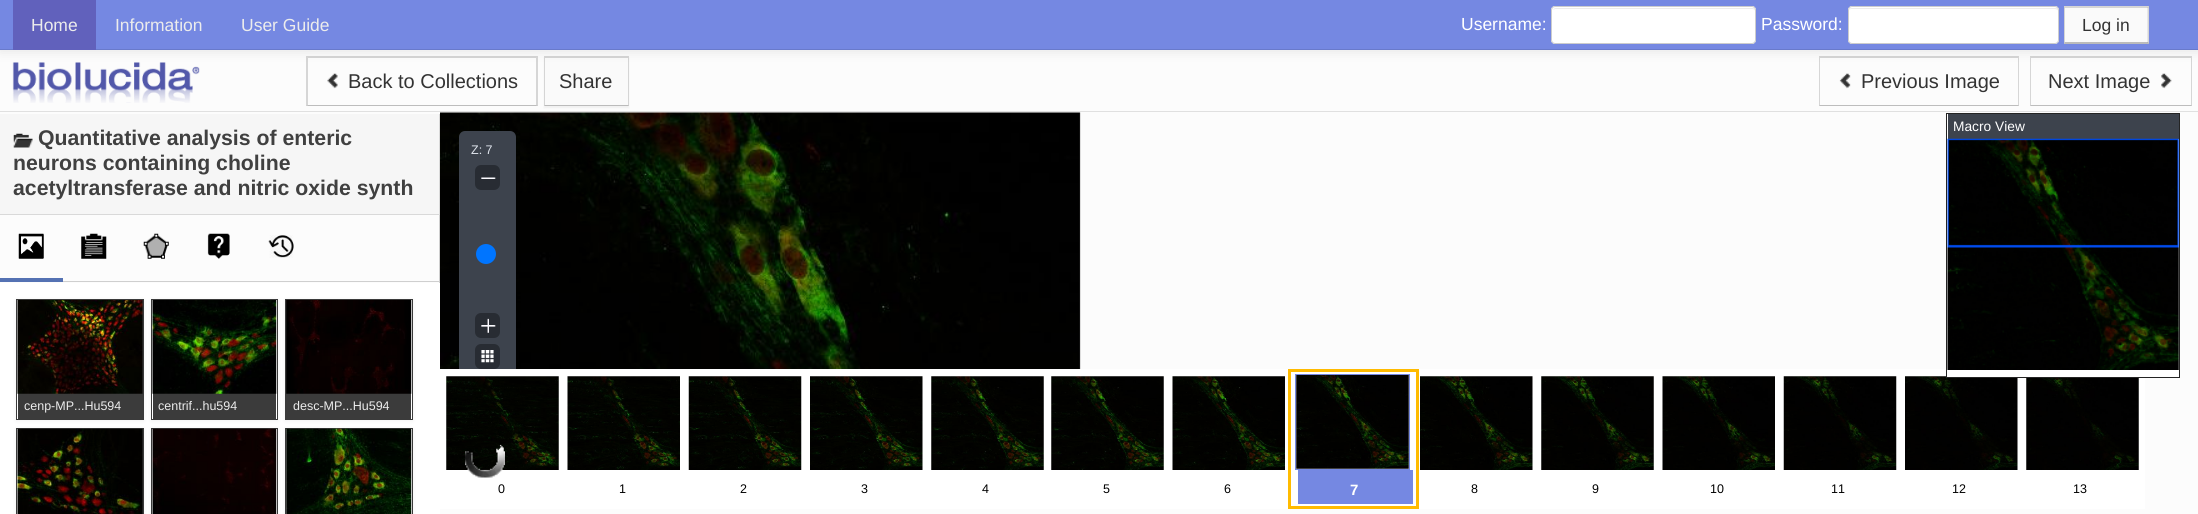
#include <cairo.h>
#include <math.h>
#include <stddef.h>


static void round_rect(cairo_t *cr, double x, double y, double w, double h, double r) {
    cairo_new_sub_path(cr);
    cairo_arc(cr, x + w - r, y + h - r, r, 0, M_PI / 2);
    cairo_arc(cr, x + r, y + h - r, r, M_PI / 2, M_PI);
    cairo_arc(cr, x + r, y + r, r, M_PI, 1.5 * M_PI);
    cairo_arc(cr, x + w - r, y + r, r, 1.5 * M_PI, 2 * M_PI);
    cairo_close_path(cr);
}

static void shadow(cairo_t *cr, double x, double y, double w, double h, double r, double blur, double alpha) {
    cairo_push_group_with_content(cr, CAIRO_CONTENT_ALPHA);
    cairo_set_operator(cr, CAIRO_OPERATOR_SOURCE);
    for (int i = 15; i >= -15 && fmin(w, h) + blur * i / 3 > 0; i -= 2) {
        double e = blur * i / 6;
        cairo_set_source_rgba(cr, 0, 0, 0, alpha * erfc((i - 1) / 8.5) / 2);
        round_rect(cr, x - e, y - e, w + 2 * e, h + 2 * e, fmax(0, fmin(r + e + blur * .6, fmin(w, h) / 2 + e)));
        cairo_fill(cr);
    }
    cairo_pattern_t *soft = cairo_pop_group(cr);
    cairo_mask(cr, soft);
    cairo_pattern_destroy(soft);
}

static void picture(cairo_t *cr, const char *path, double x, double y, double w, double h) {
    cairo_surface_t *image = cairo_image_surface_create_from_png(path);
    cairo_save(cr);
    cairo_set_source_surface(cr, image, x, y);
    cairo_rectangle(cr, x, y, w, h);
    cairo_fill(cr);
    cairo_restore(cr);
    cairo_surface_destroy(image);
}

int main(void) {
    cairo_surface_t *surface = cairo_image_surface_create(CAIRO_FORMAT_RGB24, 2198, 514);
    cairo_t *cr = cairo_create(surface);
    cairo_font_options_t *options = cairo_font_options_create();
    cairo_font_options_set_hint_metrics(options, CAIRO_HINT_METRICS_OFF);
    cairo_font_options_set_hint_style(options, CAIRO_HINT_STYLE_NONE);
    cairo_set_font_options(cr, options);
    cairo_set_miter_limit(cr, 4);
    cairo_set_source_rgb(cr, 0.988, 0.988, 0.988);
    cairo_paint(cr);
    picture(cr, "img1.png", 12, 62, 188, 41);
    cairo_set_source_rgb(cr, 0.835, 0.835, 0.835);
    cairo_new_path(cr);
    cairo_move_to(cr, 306, 56);
    cairo_line_to(cr, 538, 56);
    cairo_line_to(cr, 536, 58);
    cairo_line_to(cr, 308, 58);
    cairo_close_path(cr);
    cairo_fill(cr);
    cairo_set_source_rgba(cr, 0, 0, 0, 0.15);
    cairo_new_path(cr);
    cairo_move_to(cr, 538, 56);
    cairo_line_to(cr, 538, 106);
    cairo_line_to(cr, 536, 105);
    cairo_line_to(cr, 536, 58);
    cairo_close_path(cr);
    cairo_fill(cr);
    cairo_set_source_rgba(cr, 0, 0, 0, 0.25);
    cairo_new_path(cr);
    cairo_move_to(cr, 538, 106);
    cairo_line_to(cr, 306, 106);
    cairo_line_to(cr, 308, 105);
    cairo_line_to(cr, 536, 105);
    cairo_close_path(cr);
    cairo_fill(cr);
    cairo_set_source_rgba(cr, 0, 0, 0, 0.15);
    cairo_new_path(cr);
    cairo_move_to(cr, 306, 106);
    cairo_line_to(cr, 306, 56);
    cairo_line_to(cr, 308, 58);
    cairo_line_to(cr, 308, 105);
    cairo_close_path(cr);
    cairo_fill(cr);
    cairo_set_source_rgb(cr, 0.878, 0.878, 0.878);
    cairo_rectangle(cr, 0, 111, 2198, 1);
    cairo_fill(cr);
    cairo_set_source_rgb(cr, 0, 0, 0);
    shadow(cr, 544, 58, 85, 50, 0, 1, 0.05);
    cairo_set_source_rgb(cr, 0.98, 0.98, 0.98);
    cairo_rectangle(cr, 544, 58, 85, 48);
    cairo_fill(cr);
    cairo_set_source_rgb(cr, 0.835, 0.835, 0.835);
    cairo_new_path(cr);
    cairo_move_to(cr, 544, 56);
    cairo_line_to(cr, 629, 56);
    cairo_line_to(cr, 628, 58);
    cairo_line_to(cr, 545, 58);
    cairo_close_path(cr);
    cairo_fill(cr);
    cairo_set_source_rgba(cr, 0, 0, 0, 0.15);
    cairo_new_path(cr);
    cairo_move_to(cr, 629, 56);
    cairo_line_to(cr, 629, 106);
    cairo_line_to(cr, 628, 105);
    cairo_line_to(cr, 628, 58);
    cairo_close_path(cr);
    cairo_fill(cr);
    cairo_set_source_rgba(cr, 0, 0, 0, 0.25);
    cairo_new_path(cr);
    cairo_move_to(cr, 629, 106);
    cairo_line_to(cr, 544, 106);
    cairo_line_to(cr, 545, 105);
    cairo_line_to(cr, 628, 105);
    cairo_close_path(cr);
    cairo_fill(cr);
    cairo_set_source_rgba(cr, 0, 0, 0, 0.15);
    cairo_new_path(cr);
    cairo_move_to(cr, 544, 106);
    cairo_line_to(cr, 544, 56);
    cairo_line_to(cr, 545, 58);
    cairo_line_to(cr, 545, 105);
    cairo_close_path(cr);
    cairo_fill(cr);
    cairo_set_source_rgb(cr, 0.835, 0.835, 0.835);
    cairo_new_path(cr);
    cairo_move_to(cr, 1819, 56);
    cairo_line_to(cr, 2019, 56);
    cairo_line_to(cr, 2018, 58);
    cairo_line_to(cr, 1820, 58);
    cairo_close_path(cr);
    cairo_fill(cr);
    cairo_set_source_rgba(cr, 0, 0, 0, 0.15);
    cairo_new_path(cr);
    cairo_move_to(cr, 2019, 56);
    cairo_line_to(cr, 2019, 106);
    cairo_line_to(cr, 2018, 105);
    cairo_line_to(cr, 2018, 58);
    cairo_close_path(cr);
    cairo_fill(cr);
    cairo_set_source_rgba(cr, 0, 0, 0, 0.25);
    cairo_new_path(cr);
    cairo_move_to(cr, 2019, 106);
    cairo_line_to(cr, 1819, 106);
    cairo_line_to(cr, 1820, 105);
    cairo_line_to(cr, 2018, 105);
    cairo_close_path(cr);
    cairo_fill(cr);
    cairo_set_source_rgba(cr, 0, 0, 0, 0.15);
    cairo_new_path(cr);
    cairo_move_to(cr, 1819, 106);
    cairo_line_to(cr, 1819, 56);
    cairo_line_to(cr, 1820, 58);
    cairo_line_to(cr, 1820, 105);
    cairo_close_path(cr);
    cairo_fill(cr);
    cairo_set_source_rgb(cr, 0.835, 0.835, 0.835);
    cairo_new_path(cr);
    cairo_move_to(cr, 2030, 56);
    cairo_line_to(cr, 2192, 56);
    cairo_line_to(cr, 2191, 58);
    cairo_line_to(cr, 2031, 58);
    cairo_close_path(cr);
    cairo_fill(cr);
    cairo_set_source_rgba(cr, 0, 0, 0, 0.15);
    cairo_new_path(cr);
    cairo_move_to(cr, 2192, 56);
    cairo_line_to(cr, 2192, 106);
    cairo_line_to(cr, 2191, 105);
    cairo_line_to(cr, 2191, 58);
    cairo_close_path(cr);
    cairo_fill(cr);
    cairo_set_source_rgba(cr, 0, 0, 0, 0.25);
    cairo_new_path(cr);
    cairo_move_to(cr, 2192, 106);
    cairo_line_to(cr, 2030, 106);
    cairo_line_to(cr, 2031, 105);
    cairo_line_to(cr, 2191, 105);
    cairo_close_path(cr);
    cairo_fill(cr);
    cairo_set_source_rgba(cr, 0, 0, 0, 0.15);
    cairo_new_path(cr);
    cairo_move_to(cr, 2030, 106);
    cairo_line_to(cr, 2030, 56);
    cairo_line_to(cr, 2031, 58);
    cairo_line_to(cr, 2031, 105);
    cairo_close_path(cr);
    cairo_fill(cr);
    cairo_set_source_rgb(cr, 0, 0, 0);
    shadow(cr, 0, 1, 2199, 50, 0, 6, 0.1);
    cairo_set_source_rgb(cr, 0.459, 0.533, 0.886);
    cairo_rectangle(cr, 0, 0, 2198, 49);
    cairo_fill(cr);
    cairo_set_source_rgb(cr, 0.412, 0.478, 0.796);
    cairo_rectangle(cr, 0, 49, 2198, 1);
    cairo_fill(cr);
    cairo_set_source_rgb(cr, 0.38, 0.38, 0.737);
    cairo_rectangle(cr, 13, 0, 83, 50);
    cairo_fill(cr);
    cairo_select_font_face(cr, "Liberation Sans", CAIRO_FONT_SLANT_NORMAL, CAIRO_FONT_WEIGHT_NORMAL);
    cairo_set_font_size(cr, 17.5);
    cairo_set_source_rgb(cr, 0.922, 0.922, 0.922);
    cairo_move_to(cr, 31, 31);
    cairo_show_text(cr, "Home");
    cairo_move_to(cr, 115, 31);
    cairo_show_text(cr, "Information");
    cairo_move_to(cr, 241, 31);
    cairo_show_text(cr, "User Guide");
    cairo_set_source_rgb(cr, 1, 1, 1);
    cairo_move_to(cr, 1461, 30);
    cairo_show_text(cr, "Username:");
    round_rect(cr, 1551, 6, 205, 38, 4);
    cairo_fill(cr);
    cairo_set_source_rgb(cr, 0.925, 0.925, 0.925);
    cairo_new_path(cr);
    cairo_move_to(cr, 1555, 9);
    cairo_line_to(cr, 1752, 9);
    cairo_curve_to(cr, 1754, 9, 1755, 10, 1755, 11);
    cairo_line_to(cr, 1755, 10);
    cairo_curve_to(cr, 1755, 9, 1754, 8, 1752, 8);
    cairo_line_to(cr, 1556, 8);
    cairo_curve_to(cr, 1554, 8, 1554, 9, 1553, 10);
    cairo_close_path(cr);
    cairo_fill(cr);
    round_rect(cr, 1551.5, 6.5, 204, 37, 3.5);
    cairo_set_source_rgb(cr, 0.8, 0.8, 0.8);
    cairo_set_line_width(cr, 1);
    cairo_stroke(cr);
    cairo_set_source_rgb(cr, 1, 1, 1);
    cairo_move_to(cr, 1761, 30);
    cairo_show_text(cr, "Password:");
    round_rect(cr, 1848, 6, 211, 38, 4);
    cairo_fill(cr);
    cairo_set_source_rgb(cr, 0.925, 0.925, 0.925);
    cairo_new_path(cr);
    cairo_move_to(cr, 1851, 9);
    cairo_line_to(cr, 2055, 9);
    cairo_curve_to(cr, 2056, 9, 2058, 10, 2058, 11);
    cairo_curve_to(cr, 2058, 9, 2057, 8, 2056, 8);
    cairo_line_to(cr, 1852, 8);
    cairo_curve_to(cr, 1850, 8, 1849, 9, 1849, 11);
    cairo_curve_to(cr, 1849, 10, 1850, 9, 1851, 9);
    cairo_close_path(cr);
    cairo_fill(cr);
    round_rect(cr, 1848.5, 6.5, 210, 37, 3.5);
    cairo_set_source_rgb(cr, 0.8, 0.8, 0.8);
    cairo_stroke(cr);
    cairo_set_source_rgb(cr, 0.98, 0.98, 0.98);
    cairo_rectangle(cr, 2064, 6, 85, 38);
    cairo_fill(cr);
    cairo_set_source_rgb(cr, 0.835, 0.835, 0.835);
    cairo_new_path(cr);
    cairo_move_to(cr, 2064, 6);
    cairo_line_to(cr, 2149, 6);
    cairo_line_to(cr, 2148, 8);
    cairo_line_to(cr, 2065, 8);
    cairo_close_path(cr);
    cairo_fill(cr);
    cairo_set_source_rgba(cr, 0, 0, 0, 0.15);
    cairo_new_path(cr);
    cairo_move_to(cr, 2149, 6);
    cairo_line_to(cr, 2149, 44);
    cairo_line_to(cr, 2147.5, 42.5);
    cairo_line_to(cr, 2147.5, 7.5);
    cairo_close_path(cr);
    cairo_fill(cr);
    cairo_set_source_rgba(cr, 0, 0, 0, 0.25);
    cairo_new_path(cr);
    cairo_move_to(cr, 2149, 44);
    cairo_line_to(cr, 2064, 44);
    cairo_line_to(cr, 2065, 42);
    cairo_line_to(cr, 2148, 42);
    cairo_close_path(cr);
    cairo_fill(cr);
    cairo_set_source_rgba(cr, 0, 0, 0, 0.15);
    cairo_new_path(cr);
    cairo_move_to(cr, 2064, 44);
    cairo_line_to(cr, 2064, 6);
    cairo_line_to(cr, 2065, 7.5);
    cairo_line_to(cr, 2065, 42.5);
    cairo_close_path(cr);
    cairo_fill(cr);
    cairo_set_source_rgb(cr, 0.2, 0.2, 0.2);
    cairo_move_to(cr, 2082, 31);
    cairo_show_text(cr, "Log in");
    picture(cr, "img2.png", 327, 73, 11, 16);
    cairo_set_font_size(cr, 20);
    cairo_move_to(cr, 348, 88);
    cairo_show_text(cr, "Back to Collections");
    cairo_move_to(cr, 559, 88);
    cairo_show_text(cr, "Share");
    picture(cr, "img3.png", 1839, 73, 12, 16);
    cairo_move_to(cr, 1861, 88);
    cairo_show_text(cr, "Previous Image");
    cairo_move_to(cr, 2048, 88);
    cairo_show_text(cr, "Next Image");
    picture(cr, "img4.png", 2161, 73, 11, 16);
    cairo_set_source_rgb(cr, 0.961, 0.961, 0.961);
    cairo_rectangle(cr, 0, 114, 439, 100);
    cairo_fill(cr);
    cairo_set_source_rgb(cr, 0.851, 0.851, 0.851);
    cairo_rectangle(cr, 439, 114, 1, 101);
    cairo_fill(cr);
    cairo_rectangle(cr, 0, 214, 440, 1);
    cairo_fill(cr);
    picture(cr, "img5.png", 13, 133, 20, 15);
    cairo_select_font_face(cr, "Liberation Sans", CAIRO_FONT_SLANT_NORMAL, CAIRO_FONT_WEIGHT_BOLD);
    cairo_set_font_size(cr, 21.25);
    cairo_set_source_rgb(cr, 0.251, 0.251, 0.251);
    cairo_move_to(cr, 38, 145);
    cairo_show_text(cr, "Quantitative analysis of enteric");
    cairo_move_to(cr, 13, 170);
    cairo_show_text(cr, "neurons containing choline");
    cairo_move_to(cr, 13, 195);
    cairo_show_text(cr, "acetyltransferase and nitric oxide synth");
    cairo_set_source_rgb(cr, 0.812, 0.812, 0.812);
    cairo_rectangle(cr, 439, 215, 1, 68);
    cairo_fill(cr);
    cairo_rectangle(cr, 63, 281, 377, 1);
    cairo_fill(cr);
    cairo_set_source_rgb(cr, 0.329, 0.447, 0.702);
    cairo_rectangle(cr, 0, 278, 63, 4);
    cairo_fill(cr);
    picture(cr, "img6.png", 18, 233, 26, 26);
    picture(cr, "img7.png", 81, 233, 26, 26);
    picture(cr, "img8.png", 143, 233, 26, 26);
    picture(cr, "img9.png", 207, 233, 23, 26);
    picture(cr, "img10.png", 268, 235, 26, 23);
    cairo_set_source_rgb(cr, 1, 1, 1);
    cairo_rectangle(cr, 0, 283, 440, 231);
    cairo_fill(cr);
    cairo_set_source_rgb(cr, 0, 0, 0);
    shadow(cr, 16, 300, 128, 121, 0, 2, 0.06);
    cairo_set_source_rgb(cr, 1, 1, 1);
    cairo_rectangle(cr, 17, 300, 1, 119);
    cairo_fill(cr);
    cairo_rectangle(cr, 16.5, 299.5, 127, 120);
    cairo_set_source_rgb(cr, 0.231, 0.231, 0.231);
    cairo_stroke(cr);
    cairo_rectangle(cr, 18, 300, 125, 119);
    cairo_fill(cr);
    picture(cr, "img11.png", 17, 300, 126, 94);
    cairo_select_font_face(cr, "Liberation Sans", CAIRO_FONT_SLANT_NORMAL, CAIRO_FONT_WEIGHT_NORMAL);
    cairo_set_font_size(cr, 12.5);
    cairo_set_source_rgb(cr, 0.922, 0.922, 0.922);
    cairo_move_to(cr, 24, 410);
    cairo_show_text(cr, "cenp-MP...Hu594");
    cairo_set_source_rgb(cr, 0, 0, 0);
    shadow(cr, 151, 300, 127, 121, 0, 2, 0.06);
    cairo_set_source_rgb(cr, 1, 1, 1);
    cairo_rectangle(cr, 151.5, 299.5, 126, 120);
    cairo_fill_preserve(cr);
    cairo_set_source_rgb(cr, 0.231, 0.231, 0.231);
    cairo_stroke(cr);
    cairo_rectangle(cr, 153, 393, 123, 26);
    cairo_fill(cr);
    picture(cr, "img12.png", 152, 300, 125, 94);
    cairo_set_source_rgb(cr, 0.922, 0.922, 0.922);
    cairo_move_to(cr, 158, 410);
    cairo_show_text(cr, "centrif...hu594");
    cairo_set_source_rgb(cr, 0, 0, 0);
    shadow(cr, 285, 300, 128, 121, 0, 2, 0.06);
    cairo_set_source_rgb(cr, 1, 1, 1);
    cairo_rectangle(cr, 411, 300, 1, 119);
    cairo_fill(cr);
    cairo_rectangle(cr, 285.5, 299.5, 127, 120);
    cairo_set_source_rgb(cr, 0.231, 0.231, 0.231);
    cairo_stroke(cr);
    cairo_rectangle(cr, 286, 300, 125, 119);
    cairo_fill(cr);
    picture(cr, "img13.png", 286, 300, 126, 94);
    cairo_set_source_rgb(cr, 0.922, 0.922, 0.922);
    cairo_move_to(cr, 293, 410);
    cairo_show_text(cr, "desc-MP...Hu594");
    cairo_set_source_rgb(cr, 0, 0, 0);
    shadow(cr, 16, 429, 128, 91, 0, 2, 0.06);
    cairo_set_source_rgb(cr, 1, 1, 1);
    cairo_rectangle(cr, 17, 429, 1, 85);
    cairo_fill(cr);
    cairo_rectangle(cr, 16.5, 428.5, 127, 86);
    cairo_set_source_rgb(cr, 0.231, 0.231, 0.231);
    cairo_stroke(cr);
    cairo_rectangle(cr, 142, 429, 1, 85);
    cairo_fill(cr);
    picture(cr, "img14.png", 17, 428, 126, 86);
    cairo_set_source_rgb(cr, 0, 0, 0);
    shadow(cr, 151, 429, 127, 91, 0, 2, 0.06);
    cairo_set_source_rgb(cr, 1, 1, 1);
    cairo_rectangle(cr, 151.5, 428.5, 126, 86);
    cairo_fill_preserve(cr);
    cairo_set_source_rgb(cr, 0.231, 0.231, 0.231);
    cairo_stroke(cr);
    picture(cr, "img15.png", 152, 428, 125, 86);
    cairo_set_source_rgb(cr, 0, 0, 0);
    shadow(cr, 285, 429, 128, 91, 0, 2, 0.06);
    cairo_set_source_rgb(cr, 1, 1, 1);
    cairo_rectangle(cr, 285.5, 428.5, 127, 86);
    cairo_fill_preserve(cr);
    cairo_set_source_rgb(cr, 0.231, 0.231, 0.231);
    cairo_stroke(cr);
    picture(cr, "img16.png", 286, 428, 126, 86);
    picture(cr, "img17.png", 440, 112, 641, 257);
    cairo_set_source_rgb(cr, 0.239, 0.263, 0.302);
    round_rect(cr, 459, 131, 57, 250, 6);
    cairo_fill(cr);
    cairo_set_source_rgb(cr, 1, 1, 1);
    cairo_rectangle(cr, 440, 369, 1705, 140);
    cairo_fill(cr);
    picture(cr, "img35.png", 1905, 376, 113, 94);
    cairo_rectangle(cr, 1946.5, 113.5, 233, 264);
    cairo_fill_preserve(cr);
    cairo_set_source_rgb(cr, 0.141, 0.141, 0.141);
    cairo_stroke(cr);
    cairo_set_source_rgb(cr, 0.239, 0.263, 0.302);
    cairo_rectangle(cr, 1948, 114, 231, 25);
    cairo_fill(cr);
    cairo_set_font_size(cr, 13.75);
    cairo_set_source_rgb(cr, 1, 1, 1);
    cairo_move_to(cr, 1953, 131);
    cairo_show_text(cr, "Macro View");
    picture(cr, "img18.png", 1947, 138, 232, 232);
    cairo_set_font_size(cr, 12.5);
    cairo_set_source_rgb(cr, 0.875, 0.894, 0.922);
    cairo_move_to(cr, 471, 154);
    cairo_show_text(cr, "Z: 7");
    cairo_set_source_rgb(cr, 0.157, 0.173, 0.2);
    round_rect(cr, 475, 165, 25, 25, 6);
    cairo_fill(cr);
    picture(cr, "img19.png", 481, 177, 15, 2);
    cairo_set_source_rgb(cr, 0, 0.459, 1);
    cairo_arc(cr, 486, 254, 10, 0, 2 * M_PI);
    cairo_fill(cr);
    cairo_set_source_rgb(cr, 0.157, 0.173, 0.2);
    round_rect(cr, 475, 313, 25, 25, 6);
    cairo_fill(cr);
    picture(cr, "img20.png", 481, 318, 15, 15);
    round_rect(cr, 475, 344, 25, 25, 6);
    cairo_fill(cr);
    picture(cr, "img21.png", 481, 350, 13, 13);
    picture(cr, "img23.png", 446, 376, 113, 94);
    picture(cr, "img22.png", 465, 444, 40, 34);
    cairo_set_source_rgb(cr, 0, 0, 0);
    cairo_move_to(cr, 498, 493);
    cairo_show_text(cr, "0");
    picture(cr, "img24.png", 567, 376, 113, 94);
    cairo_move_to(cr, 619, 493);
    cairo_show_text(cr, "1");
    picture(cr, "img25.png", 688, 376, 114, 94);
    cairo_move_to(cr, 740, 493);
    cairo_show_text(cr, "2");
    picture(cr, "img26.png", 810, 376, 113, 94);
    cairo_move_to(cr, 861, 493);
    cairo_show_text(cr, "3");
    picture(cr, "img27.png", 931, 376, 113, 94);
    cairo_move_to(cr, 982, 493);
    cairo_show_text(cr, "4");
    picture(cr, "img28.png", 1051, 376, 113, 94);
    cairo_move_to(cr, 1103, 493);
    cairo_show_text(cr, "5");
    picture(cr, "img29.png", 1172, 376, 113, 94);
    cairo_move_to(cr, 1224, 493);
    cairo_show_text(cr, "6");
    cairo_rectangle(cr, 1295.5, 374.5, 114, 95);
    cairo_set_source_rgb(cr, 0.459, 0.533, 0.886);
    cairo_stroke(cr);
    picture(cr, "img30.png", 1296, 375, 113, 94);
    cairo_rectangle(cr, 1298, 470, 115, 34);
    cairo_fill(cr);
    cairo_rectangle(cr, 1289.5, 370.5, 128, 137);
    cairo_set_source_rgb(cr, 1, 0.733, 0);
    cairo_set_line_width(cr, 3);
    cairo_stroke(cr);
    cairo_select_font_face(cr, "Liberation Sans", CAIRO_FONT_SLANT_NORMAL, CAIRO_FONT_WEIGHT_BOLD);
    cairo_set_font_size(cr, 15);
    cairo_set_source_rgb(cr, 1, 1, 1);
    cairo_move_to(cr, 1350, 495);
    cairo_show_text(cr, "7");
    picture(cr, "img31.png", 1420, 376, 113, 94);
    cairo_select_font_face(cr, "Liberation Sans", CAIRO_FONT_SLANT_NORMAL, CAIRO_FONT_WEIGHT_NORMAL);
    cairo_set_font_size(cr, 12.5);
    cairo_set_source_rgb(cr, 0, 0, 0);
    cairo_move_to(cr, 1471, 493);
    cairo_show_text(cr, "8");
    picture(cr, "img32.png", 1541, 376, 113, 94);
    cairo_move_to(cr, 1592, 493);
    cairo_show_text(cr, "9");
    picture(cr, "img33.png", 1662, 376, 113, 94);
    cairo_move_to(cr, 1710, 493);
    cairo_show_text(cr, "10");
    picture(cr, "img34.png", 1783, 376, 114, 94);
    cairo_move_to(cr, 1831, 493);
    cairo_show_text(cr, "11");
    cairo_move_to(cr, 1952, 493);
    cairo_show_text(cr, "12");
    picture(cr, "img36.png", 2026, 378, 113, 92);
    cairo_move_to(cr, 2073, 493);
    cairo_show_text(cr, "13");
    cairo_surface_write_to_png(surface, "page.png");
    cairo_font_options_destroy(options);
    cairo_destroy(cr);
    cairo_surface_destroy(surface);
    return 0;
}
